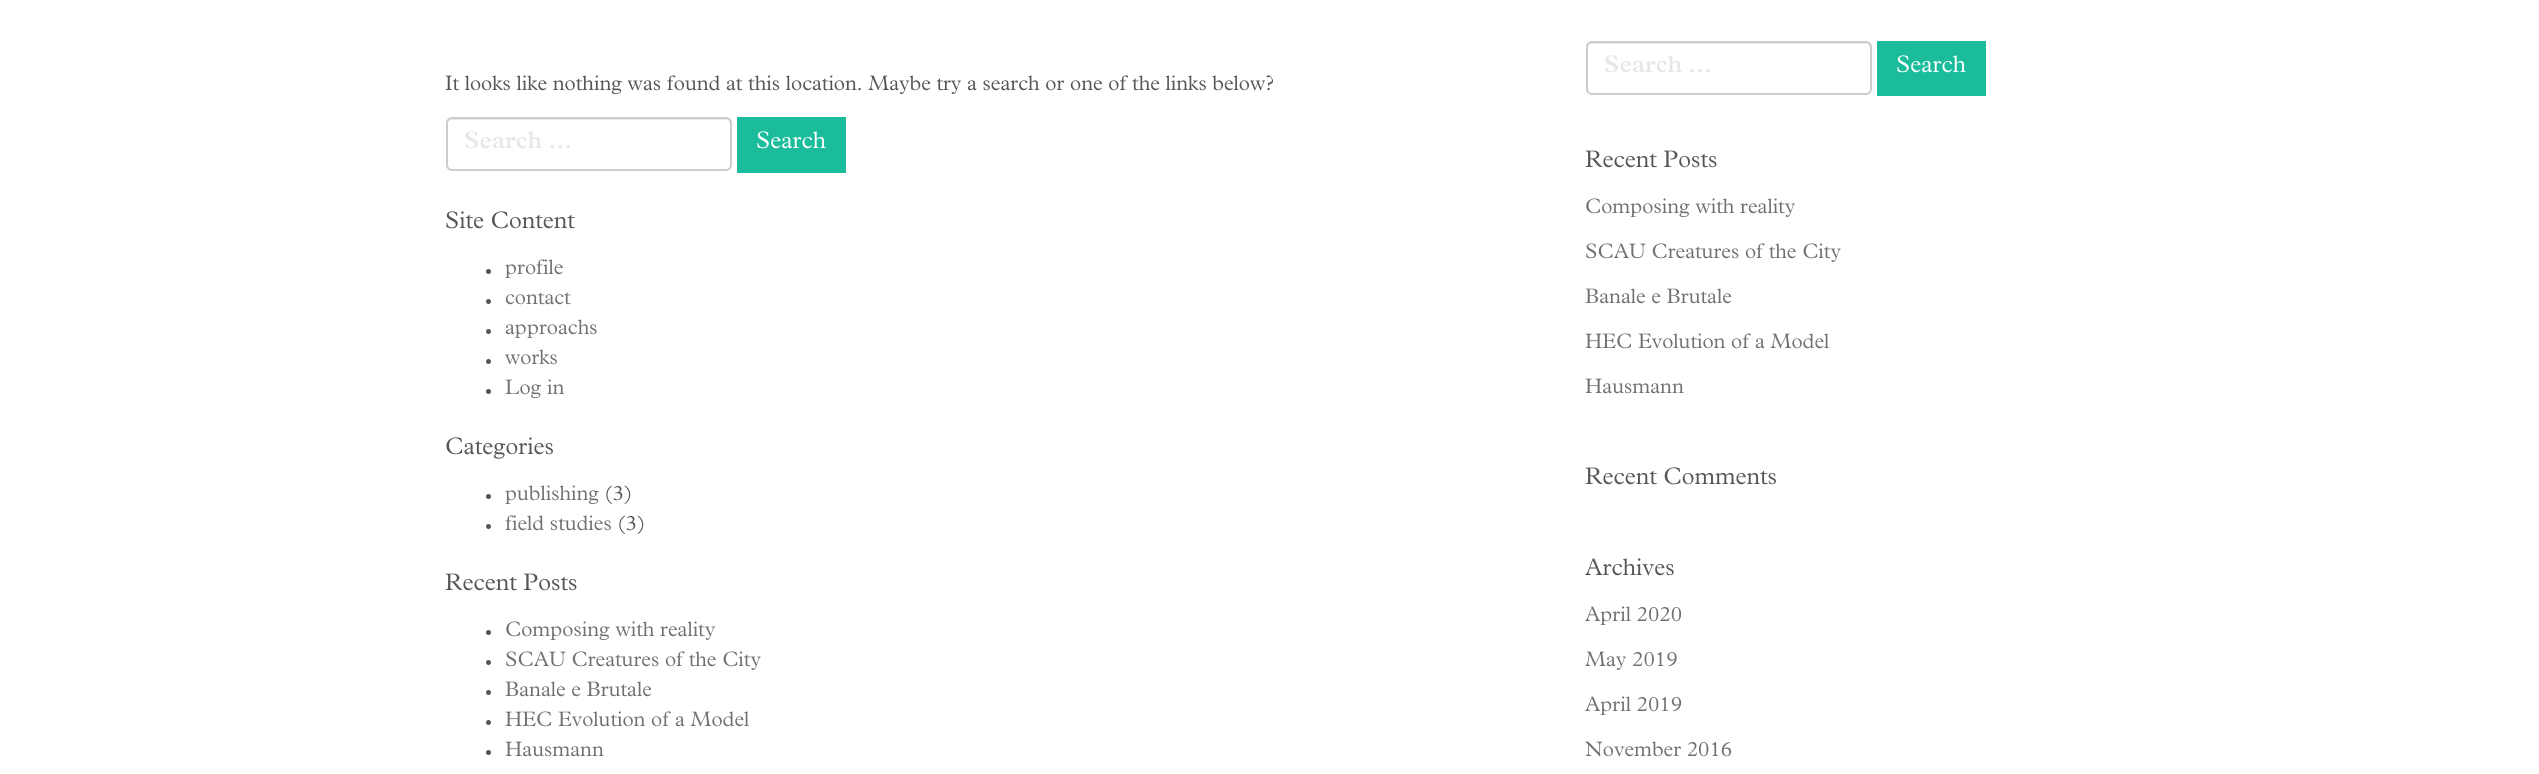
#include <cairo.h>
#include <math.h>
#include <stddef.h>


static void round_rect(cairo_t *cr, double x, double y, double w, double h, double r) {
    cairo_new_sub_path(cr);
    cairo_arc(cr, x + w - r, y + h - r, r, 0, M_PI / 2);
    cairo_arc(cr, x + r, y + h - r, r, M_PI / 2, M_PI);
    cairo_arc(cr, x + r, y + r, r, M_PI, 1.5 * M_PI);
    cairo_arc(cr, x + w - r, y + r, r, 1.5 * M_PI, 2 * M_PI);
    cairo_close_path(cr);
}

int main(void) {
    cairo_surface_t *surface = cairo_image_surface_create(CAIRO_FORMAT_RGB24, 2539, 774);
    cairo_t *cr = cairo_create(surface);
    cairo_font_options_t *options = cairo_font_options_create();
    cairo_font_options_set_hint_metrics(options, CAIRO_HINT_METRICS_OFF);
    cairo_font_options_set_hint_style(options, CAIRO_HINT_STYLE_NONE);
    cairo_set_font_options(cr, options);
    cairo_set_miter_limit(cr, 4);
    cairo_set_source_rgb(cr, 1, 1, 1);
    cairo_paint(cr);
    cairo_select_font_face(cr, "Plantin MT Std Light", CAIRO_FONT_SLANT_NORMAL, CAIRO_FONT_WEIGHT_NORMAL);
    cairo_set_font_size(cr, 21);
    cairo_set_source_rgb(cr, 0.333, 0.333, 0.333);
    cairo_move_to(cr, 445, 90);
    cairo_show_text(cr, "It looks like nothing was found at this location. Maybe try a search or one of the links below?");
    cairo_set_source_rgb(cr, 0.925, 0.925, 0.925);
    cairo_new_path(cr);
    cairo_move_to(cr, 452, 120);
    cairo_line_to(cr, 726, 120);
    cairo_curve_to(cr, 728, 120, 730, 122, 730, 124);
    cairo_line_to(cr, 730, 166);
    cairo_line_to(cr, 729, 169);
    cairo_curve_to(cr, 730, 168, 731, 166, 731, 165);
    cairo_line_to(cr, 731, 124);
    cairo_curve_to(cr, 731, 121, 729, 119, 726, 119);
    cairo_line_to(cr, 452, 119);
    cairo_curve_to(cr, 449, 119, 447, 121, 447, 124);
    cairo_curve_to(cr, 447, 122, 449, 120, 452, 120);
    cairo_close_path(cr);
    cairo_fill(cr);
    round_rect(cr, 447, 118, 284, 52, 5);
    cairo_set_source_rgb(cr, 0.8, 0.8, 0.8);
    cairo_stroke(cr);
    cairo_select_font_face(cr, "Plantin MT Std SemiBold", CAIRO_FONT_SLANT_NORMAL, CAIRO_FONT_WEIGHT_NORMAL);
    cairo_set_font_size(cr, 24);
    cairo_set_source_rgb(cr, 0.906, 0.906, 0.906);
    cairo_move_to(cr, 464, 148);
    cairo_show_text(cr, "Search …");
    cairo_set_source_rgb(cr, 0.102, 0.737, 0.612);
    cairo_rectangle(cr, 737, 117, 109, 56);
    cairo_fill(cr);
    cairo_select_font_face(cr, "Plantin MT Std Light", CAIRO_FONT_SLANT_NORMAL, CAIRO_FONT_WEIGHT_NORMAL);
    cairo_set_source_rgb(cr, 1, 1, 1);
    cairo_move_to(cr, 756, 148);
    cairo_show_text(cr, "Search");
    cairo_set_source_rgb(cr, 0.333, 0.333, 0.333);
    cairo_move_to(cr, 445, 228);
    cairo_show_text(cr, "Site Content");
    cairo_new_path(cr);
    cairo_arc(cr, 488.5, 271.5, 2.5, 0, 2 * M_PI);
    cairo_fill(cr);
    cairo_set_font_size(cr, 21);
    cairo_set_source_rgb(cr, 0.439, 0.439, 0.439);
    cairo_move_to(cr, 505, 274);
    cairo_show_text(cr, "profile");
    cairo_set_source_rgb(cr, 0.333, 0.333, 0.333);
    cairo_new_path(cr);
    cairo_arc(cr, 488.5, 301.5, 2.5, 0, 2 * M_PI);
    cairo_fill(cr);
    cairo_set_source_rgb(cr, 0.439, 0.439, 0.439);
    cairo_move_to(cr, 505, 304);
    cairo_show_text(cr, "contact");
    cairo_set_source_rgb(cr, 0.333, 0.333, 0.333);
    cairo_new_path(cr);
    cairo_arc(cr, 488.5, 331.5, 2.5, 0, 2 * M_PI);
    cairo_fill(cr);
    cairo_set_source_rgb(cr, 0.439, 0.439, 0.439);
    cairo_move_to(cr, 505, 334);
    cairo_show_text(cr, "approachs");
    cairo_set_source_rgb(cr, 0.333, 0.333, 0.333);
    cairo_new_path(cr);
    cairo_arc(cr, 488.5, 361.5, 2.5, 0, 2 * M_PI);
    cairo_fill(cr);
    cairo_set_source_rgb(cr, 0.439, 0.439, 0.439);
    cairo_move_to(cr, 505, 364);
    cairo_show_text(cr, "works");
    cairo_set_source_rgb(cr, 0.333, 0.333, 0.333);
    cairo_new_path(cr);
    cairo_arc(cr, 488.5, 391.5, 2.5, 0, 2 * M_PI);
    cairo_fill(cr);
    cairo_set_source_rgb(cr, 0.439, 0.439, 0.439);
    cairo_move_to(cr, 505, 394);
    cairo_show_text(cr, "Log in");
    cairo_set_font_size(cr, 24);
    cairo_set_source_rgb(cr, 0.333, 0.333, 0.333);
    cairo_move_to(cr, 445, 454);
    cairo_show_text(cr, "Categories");
    cairo_new_path(cr);
    cairo_arc(cr, 488.5, 496.5, 2.5, 0, 2 * M_PI);
    cairo_fill(cr);
    cairo_set_font_size(cr, 21);
    cairo_set_source_rgb(cr, 0.439, 0.439, 0.439);
    cairo_move_to(cr, 505, 500);
    cairo_show_text(cr, "publishing");
    cairo_set_source_rgb(cr, 0.333, 0.333, 0.333);
    cairo_move_to(cr, 604, 500);
    cairo_show_text(cr, "(3)");
    cairo_new_path(cr);
    cairo_arc(cr, 488.5, 526.5, 2.5, 0, 2 * M_PI);
    cairo_fill(cr);
    cairo_set_source_rgb(cr, 0.439, 0.439, 0.439);
    cairo_move_to(cr, 505, 530);
    cairo_show_text(cr, "field studies");
    cairo_set_source_rgb(cr, 0.333, 0.333, 0.333);
    cairo_move_to(cr, 617, 530);
    cairo_show_text(cr, "(3)");
    cairo_set_font_size(cr, 24);
    cairo_move_to(cr, 445, 590);
    cairo_show_text(cr, "Recent Posts");
    cairo_new_path(cr);
    cairo_arc(cr, 488.5, 632.5, 2.5, 0, 2 * M_PI);
    cairo_fill(cr);
    cairo_set_font_size(cr, 21);
    cairo_set_source_rgb(cr, 0.439, 0.439, 0.439);
    cairo_move_to(cr, 505, 636);
    cairo_show_text(cr, "Composing with reality");
    cairo_set_source_rgb(cr, 0.333, 0.333, 0.333);
    cairo_new_path(cr);
    cairo_arc(cr, 488.5, 662.5, 2.5, 0, 2 * M_PI);
    cairo_fill(cr);
    cairo_set_source_rgb(cr, 0.439, 0.439, 0.439);
    cairo_move_to(cr, 505, 666);
    cairo_show_text(cr, "SCAU Creatures of the City");
    cairo_set_source_rgb(cr, 0.333, 0.333, 0.333);
    cairo_new_path(cr);
    cairo_arc(cr, 488.5, 692.5, 2.5, 0, 2 * M_PI);
    cairo_fill(cr);
    cairo_set_source_rgb(cr, 0.439, 0.439, 0.439);
    cairo_move_to(cr, 505, 696);
    cairo_show_text(cr, "Banale e Brutale");
    cairo_set_source_rgb(cr, 0.333, 0.333, 0.333);
    cairo_new_path(cr);
    cairo_arc(cr, 488.5, 722.5, 2.5, 0, 2 * M_PI);
    cairo_fill(cr);
    cairo_set_source_rgb(cr, 0.439, 0.439, 0.439);
    cairo_move_to(cr, 505, 726);
    cairo_show_text(cr, "HEC Evolution of a Model");
    cairo_set_source_rgb(cr, 0.333, 0.333, 0.333);
    cairo_new_path(cr);
    cairo_arc(cr, 488.5, 752.5, 2.5, 0, 2 * M_PI);
    cairo_fill(cr);
    cairo_set_source_rgb(cr, 0.439, 0.439, 0.439);
    cairo_move_to(cr, 505, 756);
    cairo_show_text(cr, "Hausmann");
    cairo_set_source_rgb(cr, 0.925, 0.925, 0.925);
    cairo_new_path(cr);
    cairo_move_to(cr, 1592, 44);
    cairo_line_to(cr, 1866, 44);
    cairo_curve_to(cr, 1868, 44, 1870, 46, 1870, 48);
    cairo_line_to(cr, 1870, 91);
    cairo_curve_to(cr, 1871, 90, 1871, 89, 1871, 88);
    cairo_line_to(cr, 1871, 47);
    cairo_curve_to(cr, 1871, 44, 1869, 42, 1866, 42);
    cairo_line_to(cr, 1592, 42);
    cairo_curve_to(cr, 1589, 42, 1587, 44, 1587, 47);
    cairo_line_to(cr, 1587, 48);
    cairo_curve_to(cr, 1587, 46, 1589, 44, 1592, 44);
    cairo_close_path(cr);
    cairo_fill(cr);
    round_rect(cr, 1587, 42, 284, 52, 5);
    cairo_set_source_rgb(cr, 0.8, 0.8, 0.8);
    cairo_stroke(cr);
    cairo_select_font_face(cr, "Plantin MT Std SemiBold", CAIRO_FONT_SLANT_NORMAL, CAIRO_FONT_WEIGHT_NORMAL);
    cairo_set_font_size(cr, 24);
    cairo_set_source_rgb(cr, 0.906, 0.906, 0.906);
    cairo_move_to(cr, 1604, 72);
    cairo_show_text(cr, "Search …");
    cairo_set_source_rgb(cr, 0.102, 0.737, 0.612);
    cairo_rectangle(cr, 1877, 41, 109, 55);
    cairo_fill(cr);
    cairo_select_font_face(cr, "Plantin MT Std Light", CAIRO_FONT_SLANT_NORMAL, CAIRO_FONT_WEIGHT_NORMAL);
    cairo_set_source_rgb(cr, 1, 1, 1);
    cairo_move_to(cr, 1896, 72);
    cairo_show_text(cr, "Search");
    cairo_set_source_rgb(cr, 0.333, 0.333, 0.333);
    cairo_move_to(cr, 1585, 167);
    cairo_show_text(cr, "Recent Posts");
    cairo_set_font_size(cr, 21);
    cairo_set_source_rgb(cr, 0.439, 0.439, 0.439);
    cairo_move_to(cr, 1585, 213);
    cairo_show_text(cr, "Composing with reality");
    cairo_move_to(cr, 1585, 258);
    cairo_show_text(cr, "SCAU Creatures of the City");
    cairo_move_to(cr, 1585, 303);
    cairo_show_text(cr, "Banale e Brutale");
    cairo_move_to(cr, 1585, 348);
    cairo_show_text(cr, "HEC Evolution of a Model");
    cairo_move_to(cr, 1585, 393);
    cairo_show_text(cr, "Hausmann");
    cairo_set_font_size(cr, 24);
    cairo_set_source_rgb(cr, 0.333, 0.333, 0.333);
    cairo_move_to(cr, 1585, 484);
    cairo_show_text(cr, "Recent Comments");
    cairo_move_to(cr, 1585, 575);
    cairo_show_text(cr, "Archives");
    cairo_set_font_size(cr, 21);
    cairo_set_source_rgb(cr, 0.439, 0.439, 0.439);
    cairo_move_to(cr, 1585, 621);
    cairo_show_text(cr, "April 2020");
    cairo_move_to(cr, 1585, 666);
    cairo_show_text(cr, "May 2019");
    cairo_move_to(cr, 1585, 711);
    cairo_show_text(cr, "April 2019");
    cairo_move_to(cr, 1585, 756);
    cairo_show_text(cr, "November 2016");
    cairo_surface_write_to_png(surface, "page.png");
    cairo_font_options_destroy(options);
    cairo_destroy(cr);
    cairo_surface_destroy(surface);
    return 0;
}
